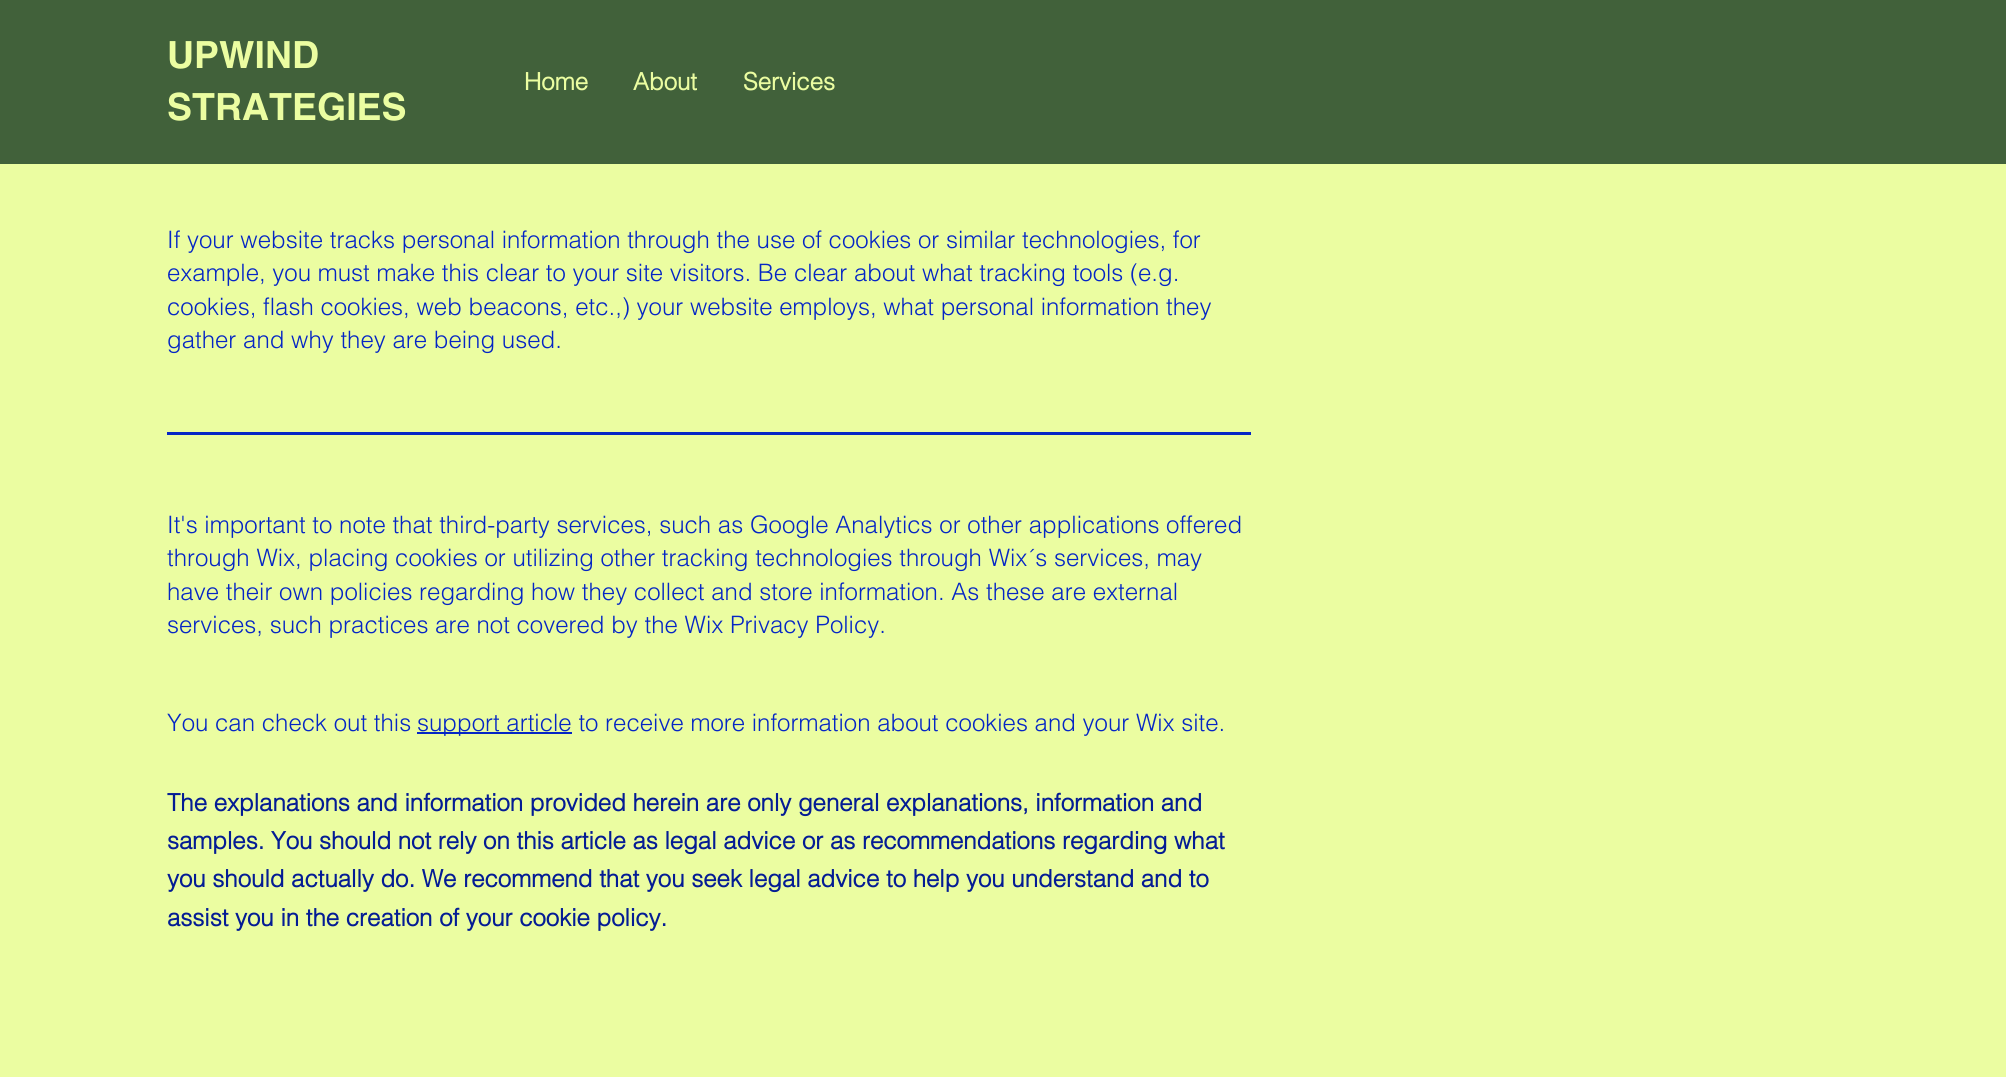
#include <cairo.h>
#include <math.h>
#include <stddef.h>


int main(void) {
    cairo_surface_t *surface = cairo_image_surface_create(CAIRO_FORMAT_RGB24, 2006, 1077);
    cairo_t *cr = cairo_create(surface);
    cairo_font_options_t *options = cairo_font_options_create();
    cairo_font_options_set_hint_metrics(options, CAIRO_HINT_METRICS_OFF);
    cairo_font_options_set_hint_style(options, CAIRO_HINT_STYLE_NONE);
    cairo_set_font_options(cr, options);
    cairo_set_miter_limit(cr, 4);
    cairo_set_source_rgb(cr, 0.918, 0.992, 0.631);
    cairo_paint(cr);
    cairo_set_source_rgb(cr, 0.255, 0.38, 0.227);
    cairo_rectangle(cr, 0, 0, 2006, 164);
    cairo_fill(cr);
    cairo_select_font_face(cr, "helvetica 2", CAIRO_FONT_SLANT_NORMAL, CAIRO_FONT_WEIGHT_BOLD);
    cairo_set_font_size(cr, 37.5);
    cairo_set_source_rgb(cr, 0.918, 0.992, 0.631);
    cairo_move_to(cr, 167, 68);
    cairo_show_text(cr, "UPWIND");
    cairo_move_to(cr, 167, 120);
    cairo_show_text(cr, "STRATEGIES");
    cairo_select_font_face(cr, "helvetica", CAIRO_FONT_SLANT_NORMAL, CAIRO_FONT_WEIGHT_BOLD);
    cairo_set_font_size(cr, 24);
    cairo_move_to(cr, 524, 90);
    cairo_show_text(cr, "Home");
    cairo_move_to(cr, 633, 90);
    cairo_show_text(cr, "About");
    cairo_move_to(cr, 743, 90);
    cairo_show_text(cr, "Services");
    cairo_select_font_face(cr, "helvetica Light", CAIRO_FONT_SLANT_NORMAL, CAIRO_FONT_WEIGHT_NORMAL);
    cairo_set_source_rgb(cr, 0.02, 0.149, 0.773);
    cairo_move_to(cr, 167, 248);
    cairo_show_text(cr, "If your website tracks personal information through the use of cookies or similar technologies, for");
    cairo_move_to(cr, 167, 281);
    cairo_show_text(cr, "example, you must make this clear to your site visitors. Be clear about what tracking tools (e.g.");
    cairo_move_to(cr, 167, 315);
    cairo_show_text(cr, "cookies, flash cookies, web beacons, etc.,) your website employs, what personal information they");
    cairo_move_to(cr, 167, 348);
    cairo_show_text(cr, "gather and why they are being used.");
    cairo_rectangle(cr, 167, 432, 1084, 3);
    cairo_fill(cr);
    cairo_move_to(cr, 167, 533);
    cairo_show_text(cr, "It's important to note that third-party services, such as Google Analytics or other applications offered");
    cairo_move_to(cr, 167, 566);
    cairo_show_text(cr, "through Wix, placing cookies or utilizing other tracking technologies through Wix´s services, may");
    cairo_move_to(cr, 167, 600);
    cairo_show_text(cr, "have their own policies regarding how they collect and store information. As these are external");
    cairo_move_to(cr, 167, 633);
    cairo_show_text(cr, "services, such practices are not covered by the Wix Privacy Policy.");
    cairo_move_to(cr, 167, 731);
    cairo_show_text(cr, "You can check out this");
    cairo_rectangle(cr, 417, 732, 155, 2);
    cairo_fill(cr);
    cairo_move_to(cr, 417, 731);
    cairo_show_text(cr, "support article to receive more information about cookies and your Wix site.");
    cairo_select_font_face(cr, "helvetica", CAIRO_FONT_SLANT_NORMAL, CAIRO_FONT_WEIGHT_BOLD);
    cairo_set_source_rgb(cr, 0.016, 0.11, 0.58);
    cairo_move_to(cr, 167, 811);
    cairo_show_text(cr, "The explanations and information provided herein are only general explanations, information and");
    cairo_move_to(cr, 167, 849);
    cairo_show_text(cr, "samples. You should not rely on this article as legal advice or as recommendations regarding what");
    cairo_move_to(cr, 167, 887);
    cairo_show_text(cr, "you should actually do. We recommend that you seek legal advice to help you understand and to");
    cairo_move_to(cr, 167, 926);
    cairo_show_text(cr, "assist you in the creation of your cookie policy.");
    cairo_surface_write_to_png(surface, "page.png");
    cairo_font_options_destroy(options);
    cairo_destroy(cr);
    cairo_surface_destroy(surface);
    return 0;
}
